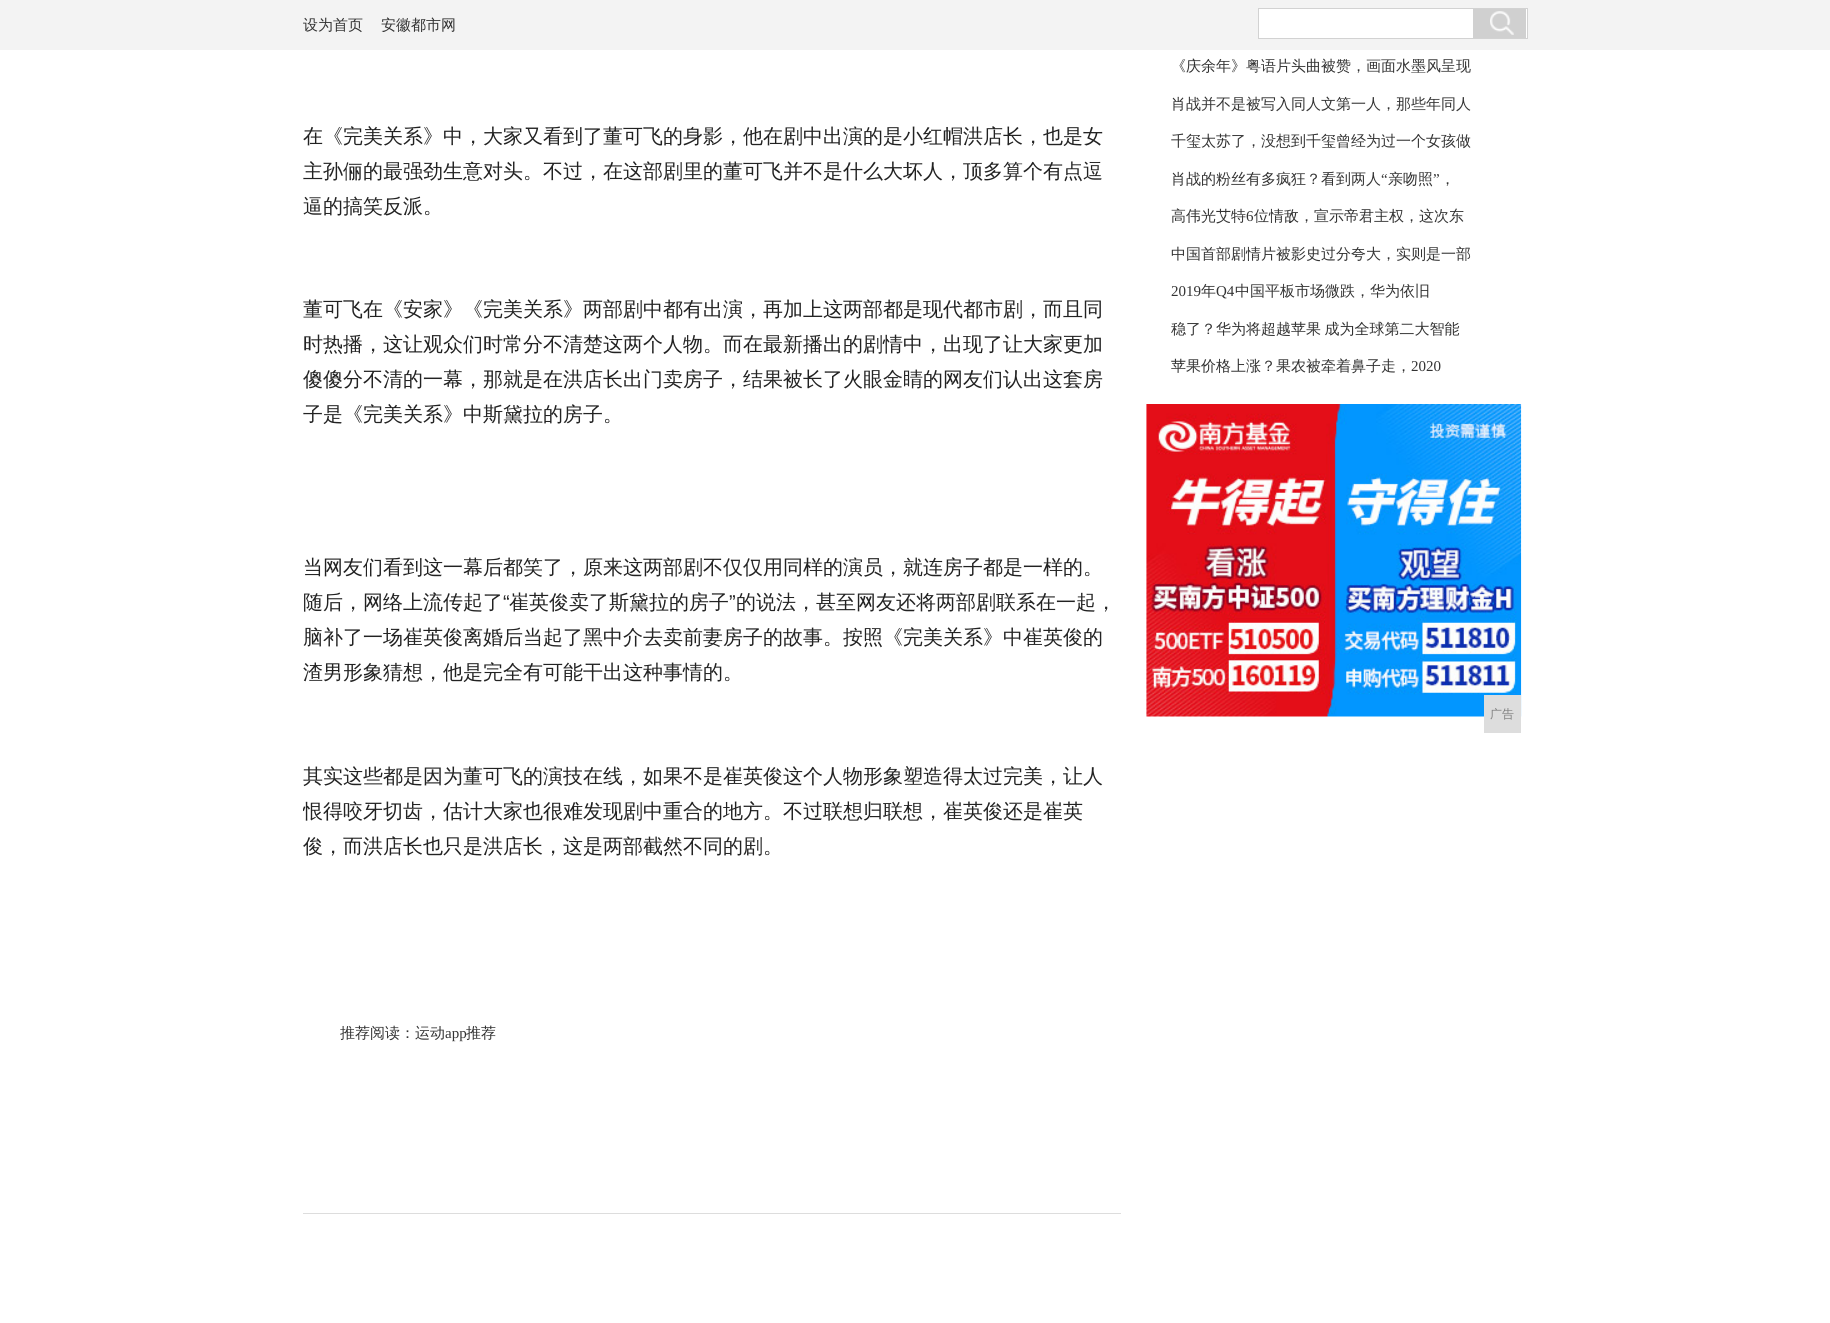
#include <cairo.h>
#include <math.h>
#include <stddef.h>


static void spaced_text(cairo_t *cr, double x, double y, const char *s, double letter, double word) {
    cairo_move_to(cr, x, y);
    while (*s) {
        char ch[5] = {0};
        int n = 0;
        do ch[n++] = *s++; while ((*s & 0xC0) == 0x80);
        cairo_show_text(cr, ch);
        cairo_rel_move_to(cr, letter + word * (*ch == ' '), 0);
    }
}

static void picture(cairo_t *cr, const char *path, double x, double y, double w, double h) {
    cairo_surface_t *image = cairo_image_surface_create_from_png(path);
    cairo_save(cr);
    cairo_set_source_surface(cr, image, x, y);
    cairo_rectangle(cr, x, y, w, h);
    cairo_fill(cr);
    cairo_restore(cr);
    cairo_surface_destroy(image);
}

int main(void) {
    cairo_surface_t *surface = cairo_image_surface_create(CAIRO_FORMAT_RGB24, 1830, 1323);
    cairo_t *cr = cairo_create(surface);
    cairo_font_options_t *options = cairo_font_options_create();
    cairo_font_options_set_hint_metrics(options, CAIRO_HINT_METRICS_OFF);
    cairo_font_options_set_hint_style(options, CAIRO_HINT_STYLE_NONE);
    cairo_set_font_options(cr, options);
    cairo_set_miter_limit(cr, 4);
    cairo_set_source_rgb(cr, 1, 1, 1);
    cairo_paint(cr);
    cairo_set_source_rgb(cr, 0.953, 0.953, 0.953);
    cairo_rectangle(cr, 0, 0, 1830, 50);
    cairo_fill(cr);
    cairo_select_font_face(cr, "WenQuanYi Zen Hei Medium", CAIRO_FONT_SLANT_NORMAL, CAIRO_FONT_WEIGHT_NORMAL);
    cairo_set_font_size(cr, 15);
    cairo_set_source_rgb(cr, 0.2, 0.2, 0.2);
    cairo_move_to(cr, 303, 30);
    cairo_show_text(cr, "设为首页");
    cairo_move_to(cr, 381, 30);
    cairo_show_text(cr, "安徽都市网");
    cairo_set_source_rgb(cr, 1, 1, 1);
    cairo_rectangle(cr, 1258.5, 8.5, 269, 30);
    cairo_fill_preserve(cr);
    cairo_set_source_rgb(cr, 0.824, 0.824, 0.824);
    cairo_set_line_width(cr, 1);
    cairo_stroke(cr);
    cairo_set_source_rgb(cr, 0.816, 0.816, 0.816);
    cairo_rectangle(cr, 1473, 9, 53, 29);
    cairo_fill(cr);
    picture(cr, "img1.png", 1490, 11, 24, 24);
    cairo_set_font_size(cr, 20);
    cairo_set_source_rgb(cr, 0.133, 0.133, 0.133);
    cairo_move_to(cr, 303, 143);
    cairo_show_text(cr, "在《完美关系》中，大家又看到了董可飞的身影，他在剧中出演的是小红帽洪店长，也是女");
    cairo_move_to(cr, 303, 178);
    cairo_show_text(cr, "主孙俪的最强劲生意对头。不过，在这部剧里的董可飞并不是什么大坏人，顶多算个有点逗");
    cairo_move_to(cr, 303, 213);
    cairo_show_text(cr, "逼的搞笑反派。");
    cairo_move_to(cr, 303, 316);
    cairo_show_text(cr, "董可飞在《安家》《完美关系》两部剧中都有出演，再加上这两部都是现代都市剧，而且同");
    cairo_move_to(cr, 303, 351);
    cairo_show_text(cr, "时热播，这让观众们时常分不清楚这两个人物。而在最新播出的剧情中，出现了让大家更加");
    cairo_move_to(cr, 303, 386);
    cairo_show_text(cr, "傻傻分不清的一幕，那就是在洪店长出门卖房子，结果被长了火眼金睛的网友们认出这套房");
    cairo_move_to(cr, 303, 421);
    cairo_show_text(cr, "子是《完美关系》中斯黛拉的房子。");
    cairo_move_to(cr, 303, 574);
    cairo_show_text(cr, "当网友们看到这一幕后都笑了，原来这两部剧不仅仅用同样的演员，就连房子都是一样的。");
    cairo_move_to(cr, 303, 609);
    cairo_show_text(cr, "随后，网络上流传起了");
    cairo_select_font_face(cr, "Liberation Sans", CAIRO_FONT_SLANT_NORMAL, CAIRO_FONT_WEIGHT_NORMAL);
    cairo_move_to(cr, 503, 609);
    cairo_show_text(cr, "“");
    cairo_select_font_face(cr, "WenQuanYi Zen Hei Medium", CAIRO_FONT_SLANT_NORMAL, CAIRO_FONT_WEIGHT_NORMAL);
    cairo_move_to(cr, 509, 609);
    cairo_show_text(cr, "崔英俊卖了斯黛拉的房子");
    cairo_select_font_face(cr, "Liberation Sans", CAIRO_FONT_SLANT_NORMAL, CAIRO_FONT_WEIGHT_NORMAL);
    cairo_move_to(cr, 729, 609);
    cairo_show_text(cr, "”");
    cairo_select_font_face(cr, "WenQuanYi Zen Hei Medium", CAIRO_FONT_SLANT_NORMAL, CAIRO_FONT_WEIGHT_NORMAL);
    cairo_move_to(cr, 736, 609);
    cairo_show_text(cr, "的说法，甚至网友还将两部剧联系在一起，");
    cairo_move_to(cr, 303, 644);
    cairo_show_text(cr, "脑补了一场崔英俊离婚后当起了黑中介去卖前妻房子的故事。按照《完美关系》中崔英俊的");
    cairo_move_to(cr, 303, 679);
    cairo_show_text(cr, "渣男形象猜想，他是完全有可能干出这种事情的。");
    cairo_move_to(cr, 303, 783);
    cairo_show_text(cr, "其实这些都是因为董可飞的演技在线，如果不是崔英俊这个人物形象塑造得太过完美，让人");
    cairo_save(cr);
    cairo_rectangle(cr, 303, 0, 1225, 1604);
    cairo_clip(cr);
    cairo_move_to(cr, 303, 818);
    cairo_show_text(cr, "恨得咬牙切齿，估计大家也很难发现剧中重合的地方。不过联想归联想，崔英俊还是崔英");
    cairo_restore(cr);
    cairo_move_to(cr, 303, 853);
    cairo_show_text(cr, "俊，而洪店长也只是洪店长，这是两部截然不同的剧。");
    cairo_set_source_rgb(cr, 0.867, 0.867, 0.867);
    cairo_rectangle(cr, 303, 1213, 818, 1);
    cairo_fill(cr);
    cairo_set_font_size(cr, 15);
    cairo_set_source_rgb(cr, 0.2, 0.2, 0.2);
    cairo_move_to(cr, 340, 1038);
    cairo_show_text(cr, "推荐阅读：运动");
    cairo_select_font_face(cr, "Liberation Serif", CAIRO_FONT_SLANT_NORMAL, CAIRO_FONT_WEIGHT_NORMAL);
    cairo_move_to(cr, 445, 1038);
    cairo_show_text(cr, "app");
    cairo_select_font_face(cr, "WenQuanYi Zen Hei Medium", CAIRO_FONT_SLANT_NORMAL, CAIRO_FONT_WEIGHT_NORMAL);
    cairo_move_to(cr, 466, 1038);
    cairo_show_text(cr, "推荐");
    cairo_move_to(cr, 1171, 71);
    cairo_show_text(cr, "《庆余年》粤语片头曲被赞，画面水墨风呈现");
    cairo_move_to(cr, 1171, 109);
    cairo_show_text(cr, "肖战并不是被写入同人文第一人，那些年同人");
    cairo_move_to(cr, 1171, 146);
    cairo_show_text(cr, "千玺太苏了，没想到千玺曾经为过一个女孩做");
    cairo_move_to(cr, 1171, 184);
    cairo_show_text(cr, "肖战的粉丝有多疯狂？看到两人");
    cairo_select_font_face(cr, "Liberation Serif", CAIRO_FONT_SLANT_NORMAL, CAIRO_FONT_WEIGHT_NORMAL);
    cairo_move_to(cr, 1381, 184);
    cairo_show_text(cr, "“");
    cairo_select_font_face(cr, "WenQuanYi Zen Hei Medium", CAIRO_FONT_SLANT_NORMAL, CAIRO_FONT_WEIGHT_NORMAL);
    cairo_move_to(cr, 1388, 184);
    cairo_show_text(cr, "亲吻照");
    cairo_select_font_face(cr, "Liberation Serif", CAIRO_FONT_SLANT_NORMAL, CAIRO_FONT_WEIGHT_NORMAL);
    cairo_move_to(cr, 1433, 184);
    cairo_show_text(cr, "”");
    cairo_select_font_face(cr, "WenQuanYi Zen Hei Medium", CAIRO_FONT_SLANT_NORMAL, CAIRO_FONT_WEIGHT_NORMAL);
    cairo_move_to(cr, 1440, 184);
    cairo_show_text(cr, "，");
    cairo_move_to(cr, 1171, 221);
    cairo_show_text(cr, "高伟光艾特");
    cairo_select_font_face(cr, "Liberation Serif", CAIRO_FONT_SLANT_NORMAL, CAIRO_FONT_WEIGHT_NORMAL);
    cairo_move_to(cr, 1246, 221);
    cairo_show_text(cr, "6");
    cairo_select_font_face(cr, "WenQuanYi Zen Hei Medium", CAIRO_FONT_SLANT_NORMAL, CAIRO_FONT_WEIGHT_NORMAL);
    cairo_move_to(cr, 1254, 221);
    cairo_show_text(cr, "位情敌，宣示帝君主权，这次东");
    cairo_move_to(cr, 1171, 259);
    cairo_show_text(cr, "中国首部剧情片被影史过分夸大，实则是一部");
    cairo_select_font_face(cr, "Liberation Serif", CAIRO_FONT_SLANT_NORMAL, CAIRO_FONT_WEIGHT_NORMAL);
    cairo_move_to(cr, 1171, 296);
    cairo_show_text(cr, "2019");
    cairo_select_font_face(cr, "WenQuanYi Zen Hei Medium", CAIRO_FONT_SLANT_NORMAL, CAIRO_FONT_WEIGHT_NORMAL);
    cairo_move_to(cr, 1201, 296);
    cairo_show_text(cr, "年");
    cairo_select_font_face(cr, "Liberation Serif", CAIRO_FONT_SLANT_NORMAL, CAIRO_FONT_WEIGHT_NORMAL);
    cairo_move_to(cr, 1216, 296);
    cairo_show_text(cr, "Q4");
    cairo_select_font_face(cr, "WenQuanYi Zen Hei Medium", CAIRO_FONT_SLANT_NORMAL, CAIRO_FONT_WEIGHT_NORMAL);
    cairo_move_to(cr, 1235, 296);
    cairo_show_text(cr, "中国平板市场微跌，华为依旧");
    spaced_text(cr, 1171, 334, "稳了？华为将超越苹果 成为全球第二大智能", 0, -1);
    cairo_move_to(cr, 1171, 371);
    cairo_show_text(cr, "苹果价格上涨？果农被牵着鼻子走，");
    cairo_select_font_face(cr, "Liberation Serif", CAIRO_FONT_SLANT_NORMAL, CAIRO_FONT_WEIGHT_NORMAL);
    cairo_move_to(cr, 1411, 371);
    cairo_show_text(cr, "2020");
    picture(cr, "img2.png", 1146, 404, 376, 313);
    cairo_set_source_rgb(cr, 0.867, 0.867, 0.867);
    cairo_rectangle(cr, 1484, 695, 37, 38);
    cairo_fill(cr);
    cairo_select_font_face(cr, "WenQuanYi Zen Hei Medium", CAIRO_FONT_SLANT_NORMAL, CAIRO_FONT_WEIGHT_NORMAL);
    cairo_set_font_size(cr, 12);
    cairo_set_source_rgb(cr, 0.502, 0.502, 0.502);
    cairo_move_to(cr, 1490, 718);
    cairo_show_text(cr, "广告");
    cairo_surface_write_to_png(surface, "page.png");
    cairo_font_options_destroy(options);
    cairo_destroy(cr);
    cairo_surface_destroy(surface);
    return 0;
}
